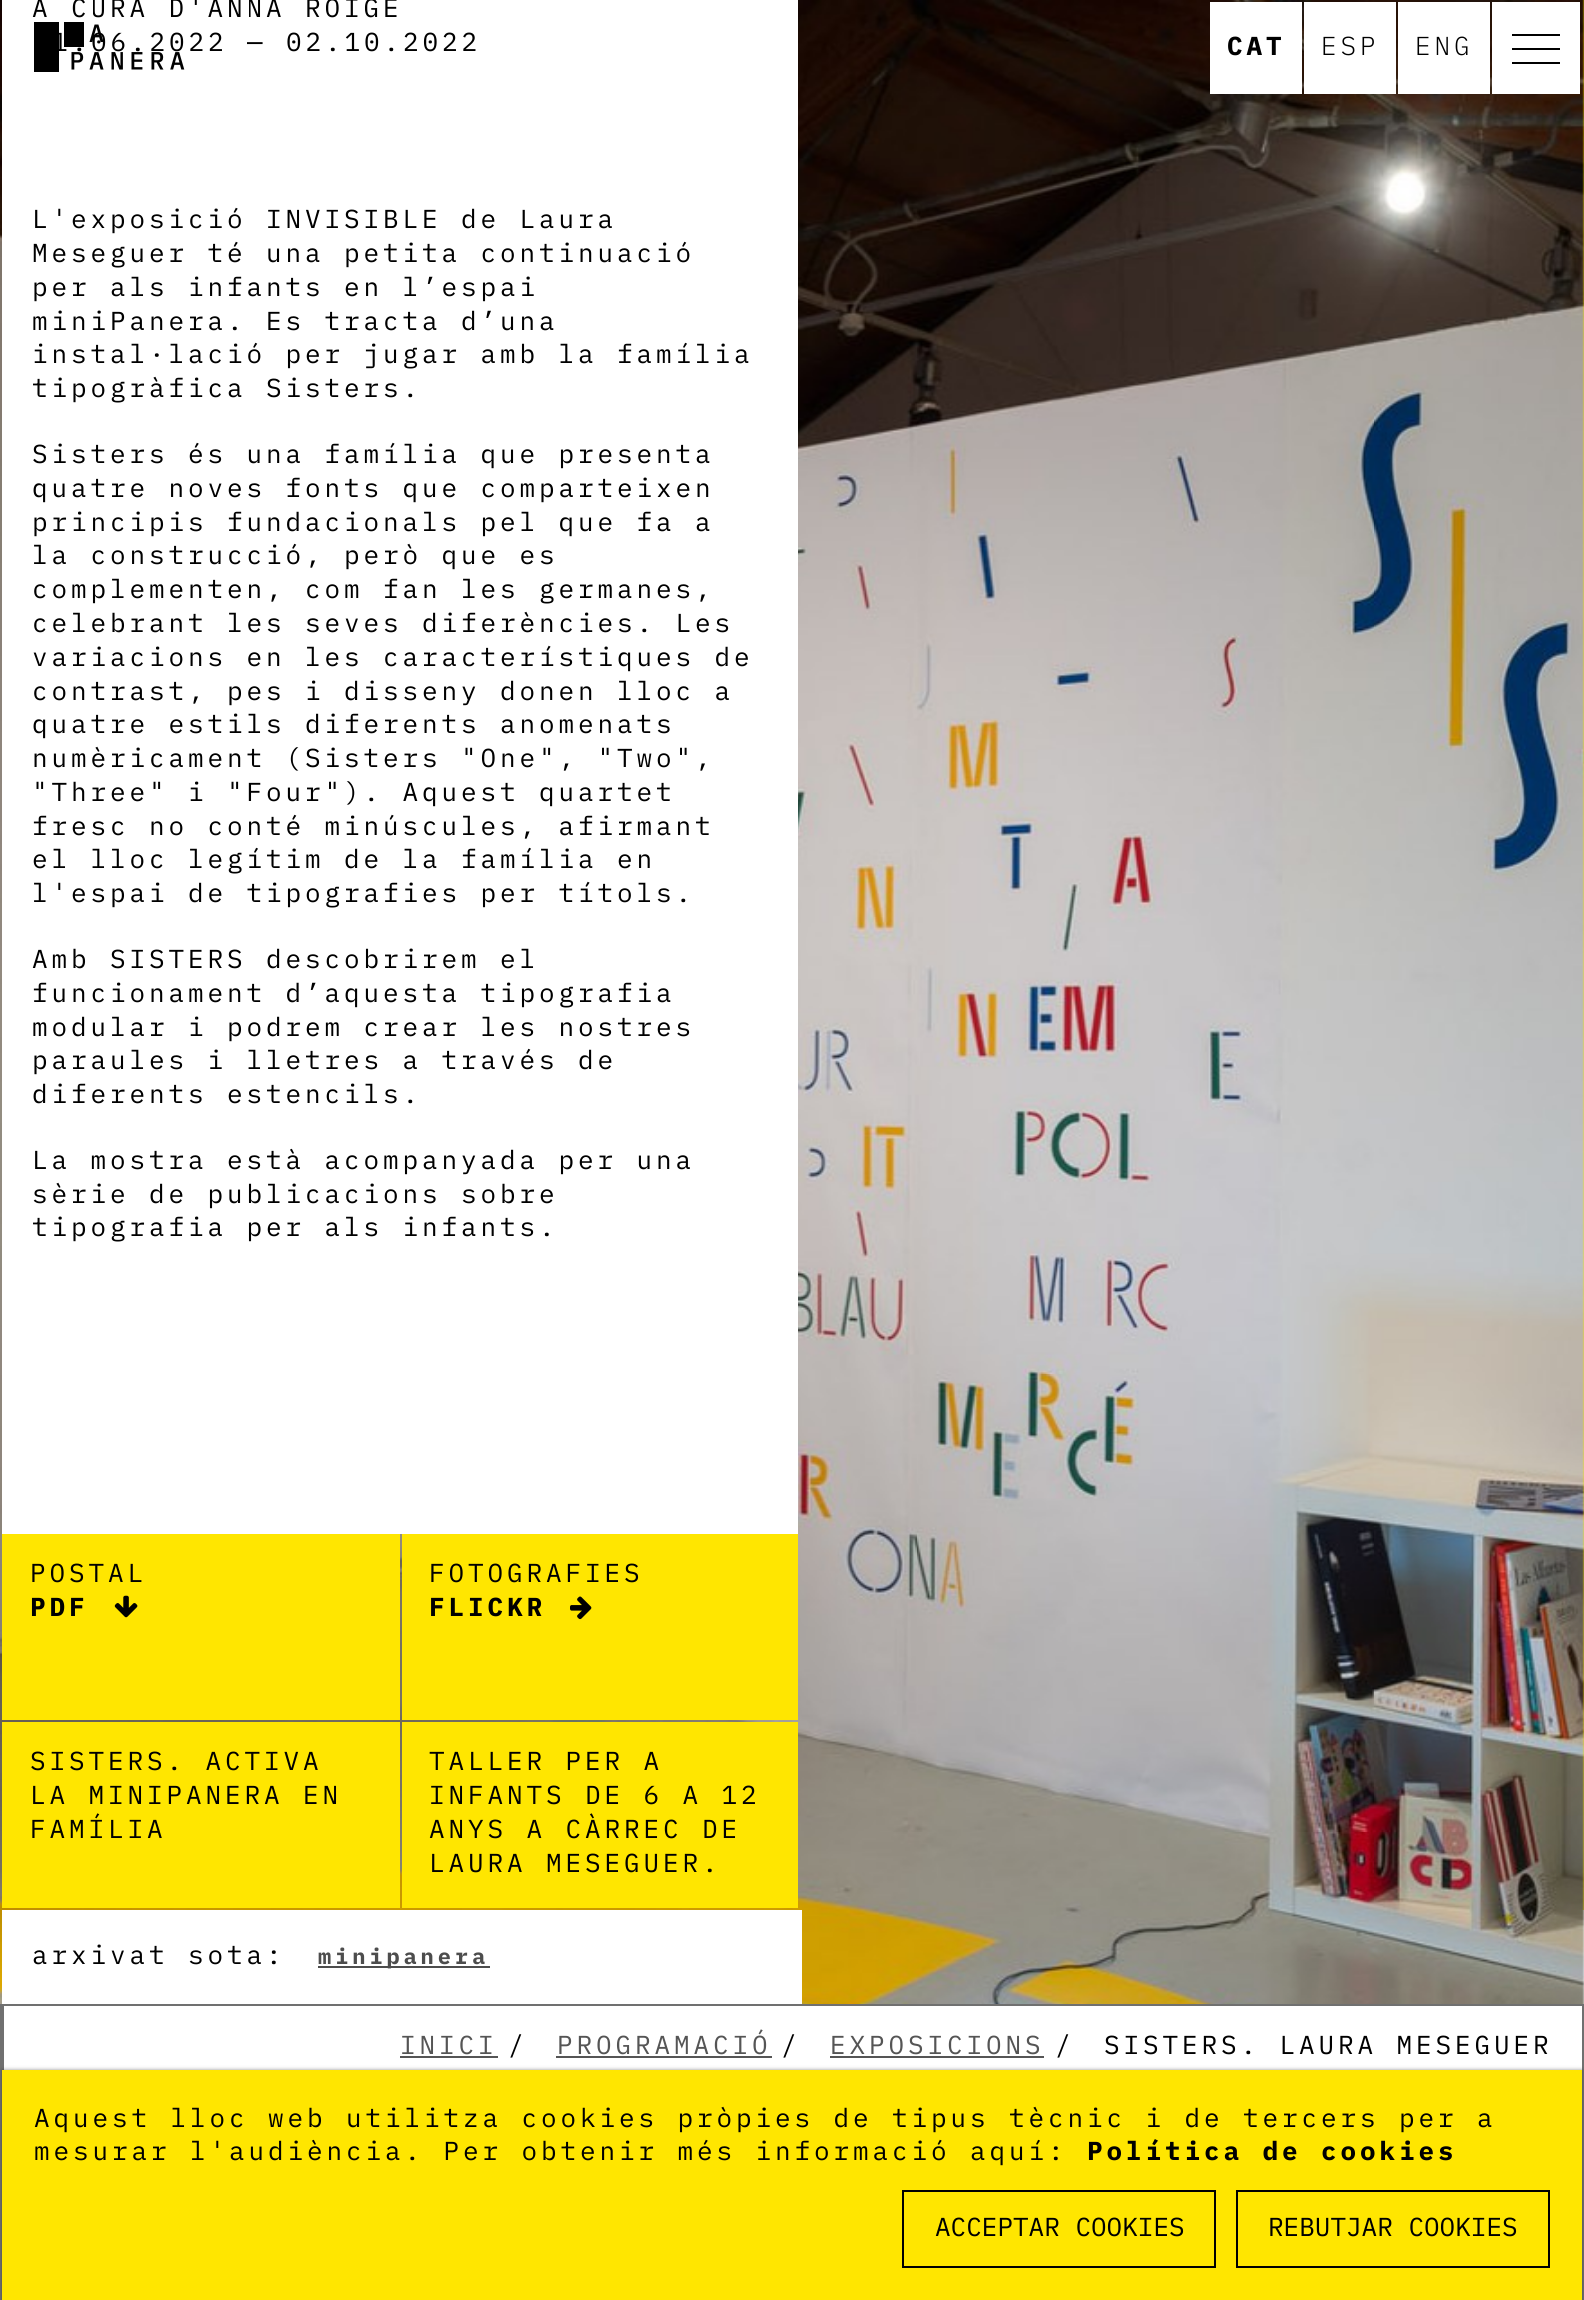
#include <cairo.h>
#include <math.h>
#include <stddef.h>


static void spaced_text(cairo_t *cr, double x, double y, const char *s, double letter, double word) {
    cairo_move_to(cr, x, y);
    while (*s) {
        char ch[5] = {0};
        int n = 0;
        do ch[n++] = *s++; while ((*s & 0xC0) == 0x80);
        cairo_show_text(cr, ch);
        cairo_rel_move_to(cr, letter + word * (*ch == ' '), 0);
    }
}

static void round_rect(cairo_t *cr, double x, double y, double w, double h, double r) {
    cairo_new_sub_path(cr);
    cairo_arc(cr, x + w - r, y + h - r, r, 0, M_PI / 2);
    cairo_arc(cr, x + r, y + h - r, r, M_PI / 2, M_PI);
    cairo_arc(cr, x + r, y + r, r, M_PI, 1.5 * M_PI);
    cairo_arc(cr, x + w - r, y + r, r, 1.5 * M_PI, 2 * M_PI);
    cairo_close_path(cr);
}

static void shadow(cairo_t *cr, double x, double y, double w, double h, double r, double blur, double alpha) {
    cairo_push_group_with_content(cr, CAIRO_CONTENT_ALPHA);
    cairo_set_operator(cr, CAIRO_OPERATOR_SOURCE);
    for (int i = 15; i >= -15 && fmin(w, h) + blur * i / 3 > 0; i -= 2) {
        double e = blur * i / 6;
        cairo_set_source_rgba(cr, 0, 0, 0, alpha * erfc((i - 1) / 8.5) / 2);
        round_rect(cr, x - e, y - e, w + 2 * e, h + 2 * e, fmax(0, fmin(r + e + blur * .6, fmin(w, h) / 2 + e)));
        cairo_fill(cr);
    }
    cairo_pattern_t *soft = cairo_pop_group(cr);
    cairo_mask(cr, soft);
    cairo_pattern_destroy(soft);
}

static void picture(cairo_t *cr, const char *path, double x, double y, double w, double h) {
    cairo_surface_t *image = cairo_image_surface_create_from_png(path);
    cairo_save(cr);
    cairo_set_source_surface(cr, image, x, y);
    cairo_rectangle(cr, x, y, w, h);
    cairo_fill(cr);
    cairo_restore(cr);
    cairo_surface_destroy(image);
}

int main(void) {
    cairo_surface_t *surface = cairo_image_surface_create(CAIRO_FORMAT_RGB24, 1584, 2300);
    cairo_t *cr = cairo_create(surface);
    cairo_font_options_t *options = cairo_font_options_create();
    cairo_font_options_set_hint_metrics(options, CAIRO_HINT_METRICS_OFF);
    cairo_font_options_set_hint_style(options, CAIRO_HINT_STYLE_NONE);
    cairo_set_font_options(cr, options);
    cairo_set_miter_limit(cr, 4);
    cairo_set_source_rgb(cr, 1, 1, 1);
    cairo_paint(cr);
    cairo_set_source_rgb(cr, 1, 0.902, 0);
    cairo_rectangle(cr, 1582, 0, 2, 1910);
    cairo_fill(cr);
    picture(cr, "img1.png", 0, 0, 1584, 2004);
    cairo_set_source_rgb(cr, 1, 1, 1);
    cairo_rectangle(cr, 2, 0, 796, 1534);
    cairo_fill(cr);
    cairo_select_font_face(cr, "IBM Plex Mono", CAIRO_FONT_SLANT_NORMAL, CAIRO_FONT_WEIGHT_NORMAL);
    cairo_set_font_size(cr, 26);
    cairo_set_source_rgb(cr, 0, 0, 0);
    spaced_text(cr, 32, 17, "A CURA D'ANNA ROIGÉ", 3.9, 0);
    spaced_text(cr, 52, 51, "1.06.2022 — 02.10.2022", 3.9, 0);
    spaced_text(cr, 32, 228, "L'exposició INVISIBLE de Laura", 3.9, 0);
    spaced_text(cr, 32, 262, "Meseguer té una petita continuació", 3.9, 0);
    spaced_text(cr, 32, 296, "per als infants en l’espai", 3.9, 0);
    spaced_text(cr, 32, 330, "miniPanera. Es tracta d’una", 3.9, 0);
    spaced_text(cr, 32, 363, "instal·lació per jugar amb la família", 3.9, 0);
    spaced_text(cr, 32, 397, "tipogràfica Sisters.", 3.9, 0);
    spaced_text(cr, 32, 463, "Sisters és una família que presenta", 3.9, 0);
    spaced_text(cr, 32, 497, "quatre noves fonts que comparteixen", 3.9, 0);
    spaced_text(cr, 32, 531, "principis fundacionals pel que fa a", 3.9, 0);
    spaced_text(cr, 32, 564, "la construcció, però que es", 3.9, 0);
    spaced_text(cr, 32, 598, "complementen, com fan les germanes,", 3.9, 0);
    spaced_text(cr, 32, 632, "celebrant les seves diferències. Les", 3.9, 0);
    spaced_text(cr, 32, 666, "variacions en les característiques de", 3.9, 0);
    spaced_text(cr, 32, 700, "contrast, pes i disseny donen lloc a", 3.9, 0);
    spaced_text(cr, 32, 733, "quatre estils diferents anomenats", 3.9, 0);
    spaced_text(cr, 32, 767, "numèricament (Sisters \"One\", \"Two\",", 3.9, 0);
    spaced_text(cr, 32, 801, "\"Three\" i \"Four\"). Aquest quartet", 3.9, 0);
    spaced_text(cr, 32, 835, "fresc no conté minúscules, afirmant", 3.9, 0);
    spaced_text(cr, 32, 868, "el lloc legítim de la família en", 3.9, 0);
    spaced_text(cr, 32, 902, "l'espai de tipografies per títols.", 3.9, 0);
    spaced_text(cr, 32, 968, "Amb SISTERS descobrirem el", 3.9, 0);
    spaced_text(cr, 32, 1002, "funcionament d’aquesta tipografia", 3.9, 0);
    spaced_text(cr, 32, 1036, "modular i podrem crear les nostres", 3.9, 0);
    spaced_text(cr, 32, 1069, "paraules i lletres a través de", 3.9, 0);
    spaced_text(cr, 32, 1103, "diferents estencils.", 3.9, 0);
    spaced_text(cr, 32, 1169, "La mostra està acompanyada per una", 3.9, 0);
    spaced_text(cr, 32, 1203, "sèrie de publicacions sobre", 3.9, 0);
    spaced_text(cr, 32, 1236, "tipografia per als infants.", 3.9, 0);
    cairo_set_source_rgb(cr, 1, 0.902, 0);
    cairo_rectangle(cr, 2, 1534, 398, 186);
    cairo_fill(cr);
    cairo_set_source_rgb(cr, 0, 0, 0);
    spaced_text(cr, 30, 1582, "POSTAL", 3.9, 0);
    cairo_select_font_face(cr, "IBM Plex Mono", CAIRO_FONT_SLANT_NORMAL, CAIRO_FONT_WEIGHT_BOLD);
    spaced_text(cr, 30, 1616, "PDF", 3.9, 0);
    picture(cr, "img2.png", 114, 1595, 24, 23);
    cairo_set_source_rgb(cr, 1, 0.902, 0);
    cairo_rectangle(cr, 402, 1534, 396, 186);
    cairo_fill(cr);
    cairo_select_font_face(cr, "IBM Plex Mono", CAIRO_FONT_SLANT_NORMAL, CAIRO_FONT_WEIGHT_NORMAL);
    cairo_set_source_rgb(cr, 0, 0, 0);
    spaced_text(cr, 429, 1582, "FOTOGRAFIES", 3.9, 0);
    cairo_select_font_face(cr, "IBM Plex Mono", CAIRO_FONT_SLANT_NORMAL, CAIRO_FONT_WEIGHT_BOLD);
    spaced_text(cr, 429, 1616, "FLICKR", 3.9, 0);
    picture(cr, "img3.png", 570, 1596, 22, 24);
    cairo_set_source_rgb(cr, 1, 0.902, 0);
    cairo_rectangle(cr, 2, 1722, 398, 186);
    cairo_fill(cr);
    cairo_select_font_face(cr, "IBM Plex Mono", CAIRO_FONT_SLANT_NORMAL, CAIRO_FONT_WEIGHT_NORMAL);
    cairo_set_source_rgb(cr, 0, 0, 0);
    spaced_text(cr, 30, 1770, "SISTERS. ACTIVA", 3.9, 0);
    spaced_text(cr, 30, 1804, "LA MINIPANERA EN", 3.9, 0);
    spaced_text(cr, 30, 1838, "FAMÍLIA", 3.9, 0);
    cairo_set_source_rgb(cr, 1, 0.902, 0);
    cairo_rectangle(cr, 402, 1722, 396, 186);
    cairo_fill(cr);
    cairo_set_source_rgb(cr, 0, 0, 0);
    spaced_text(cr, 429, 1770, "TALLER PER A", 3.9, 0);
    spaced_text(cr, 429, 1804, "INFANTS DE 6 A 12", 3.9, 0);
    spaced_text(cr, 429, 1838, "ANYS A CÀRREC DE", 3.9, 0);
    spaced_text(cr, 429, 1872, "LAURA MESEGUER.", 3.9, 0);
    cairo_set_source_rgb(cr, 1, 1, 1);
    cairo_rectangle(cr, 2, 1910, 800, 94);
    cairo_fill(cr);
    cairo_set_source_rgb(cr, 0, 0, 0);
    spaced_text(cr, 32, 1964, "arxivat sota:", 3.9, 0);
    cairo_set_source_rgb(cr, 0.302, 0.302, 0.302);
    cairo_rectangle(cr, 318, 1966, 172, 2);
    cairo_fill(cr);
    cairo_select_font_face(cr, "IBM Plex Mono", CAIRO_FONT_SLANT_NORMAL, CAIRO_FONT_WEIGHT_BOLD);
    cairo_set_font_size(cr, 22);
    spaced_text(cr, 318, 1964, "minipanera", 3.9, 0);
    picture(cr, "img4.png", 34, 22, 151, 50);
    cairo_set_source_rgb(cr, 1, 1, 1);
    cairo_rectangle(cr, 1210, 2, 92, 92);
    cairo_fill(cr);
    cairo_set_font_size(cr, 26);
    cairo_set_source_rgb(cr, 0, 0, 0);
    spaced_text(cr, 1227, 55, "CAT", 3.9, 0);
    cairo_set_source_rgb(cr, 1, 1, 1);
    cairo_rectangle(cr, 1304, 2, 92, 92);
    cairo_fill(cr);
    cairo_select_font_face(cr, "IBM Plex Mono Light", CAIRO_FONT_SLANT_NORMAL, CAIRO_FONT_WEIGHT_NORMAL);
    cairo_set_source_rgb(cr, 0, 0, 0);
    spaced_text(cr, 1321, 55, "ESP", 3.9, 0);
    cairo_set_source_rgb(cr, 1, 1, 1);
    cairo_rectangle(cr, 1398, 2, 92, 92);
    cairo_fill(cr);
    cairo_set_source_rgb(cr, 0, 0, 0);
    spaced_text(cr, 1415, 55, "ENG", 3.9, 0);
    cairo_set_source_rgb(cr, 1, 1, 1);
    cairo_rectangle(cr, 1492, 2, 88, 92);
    cairo_fill(cr);
    cairo_set_source_rgb(cr, 0, 0, 0);
    cairo_rectangle(cr, 1512, 48, 48, 2);
    cairo_fill(cr);
    cairo_rectangle(cr, 1512, 34, 48, 2);
    cairo_fill(cr);
    cairo_rectangle(cr, 1512, 62, 48, 2);
    cairo_fill(cr);
    cairo_rectangle(cr, 1, 2005, 1582, 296);
    cairo_set_source_rgb(cr, 0.439, 0.439, 0.439);
    cairo_stroke(cr);
    cairo_rectangle(cr, 2, 2006, 2, 64);
    cairo_fill(cr);
    cairo_select_font_face(cr, "IBM Plex Mono", CAIRO_FONT_SLANT_NORMAL, CAIRO_FONT_WEIGHT_NORMAL);
    cairo_set_source_rgb(cr, 0.333, 0.333, 0.333);
    spaced_text(cr, 400, 2054, "INICI", 3.9, 0);
    cairo_rectangle(cr, 400, 2056, 98, 2);
    cairo_fill(cr);
    cairo_set_source_rgb(cr, 0, 0, 0);
    spaced_text(cr, 508, 2054, "/", 3.9, 0);
    cairo_set_source_rgb(cr, 0.333, 0.333, 0.333);
    spaced_text(cr, 557, 2054, "PROGRAMACIÓ", 3.9, 0);
    cairo_rectangle(cr, 556, 2056, 216, 2);
    cairo_fill(cr);
    cairo_set_source_rgb(cr, 0, 0, 0);
    spaced_text(cr, 781, 2054, "/", 3.9, 0);
    cairo_set_source_rgb(cr, 0.333, 0.333, 0.333);
    spaced_text(cr, 830, 2054, "EXPOSICIONS", 3.9, 0);
    cairo_rectangle(cr, 830, 2056, 214, 2);
    cairo_fill(cr);
    cairo_set_source_rgb(cr, 0, 0, 0);
    spaced_text(cr, 1055, 2054, "/", 3.9, 0);
    spaced_text(cr, 1104, 2054, "SISTERS. LAURA MESEGUER", 3.9, 0);
    cairo_set_source_rgb(cr, 0.133, 0.133, 0.133);
    shadow(cr, 2, 2070, 1580, 230, 0, 2, 0.5);
    cairo_set_source_rgb(cr, 1, 0.902, 0);
    cairo_rectangle(cr, 2, 2070, 1580, 230);
    cairo_fill(cr);
    cairo_set_source_rgb(cr, 0, 0, 0);
    spaced_text(cr, 34, 2127, "Aquest lloc web utilitza cookies pròpies de tipus tècnic i de tercers per a", 3.9, 0);
    spaced_text(cr, 34, 2160, "mesurar l'audiència. Per obtenir més informació aquí:", 3.9, 0);
    cairo_select_font_face(cr, "IBM Plex Mono", CAIRO_FONT_SLANT_NORMAL, CAIRO_FONT_WEIGHT_BOLD);
    spaced_text(cr, 1087, 2160, "Política de cookies", 3.9, 0);
    cairo_rectangle(cr, 903, 2191, 312, 76);
    cairo_stroke(cr);
    cairo_select_font_face(cr, "IBM Plex Mono", CAIRO_FONT_SLANT_NORMAL, CAIRO_FONT_WEIGHT_NORMAL);
    cairo_move_to(cr, 935, 2236);
    cairo_show_text(cr, "ACCEPTAR COOKIES");
    cairo_rectangle(cr, 1237, 2191, 312, 76);
    cairo_stroke(cr);
    cairo_move_to(cr, 1268, 2236);
    cairo_show_text(cr, "REBUTJAR COOKIES");
    cairo_surface_write_to_png(surface, "page.png");
    cairo_font_options_destroy(options);
    cairo_destroy(cr);
    cairo_surface_destroy(surface);
    return 0;
}
